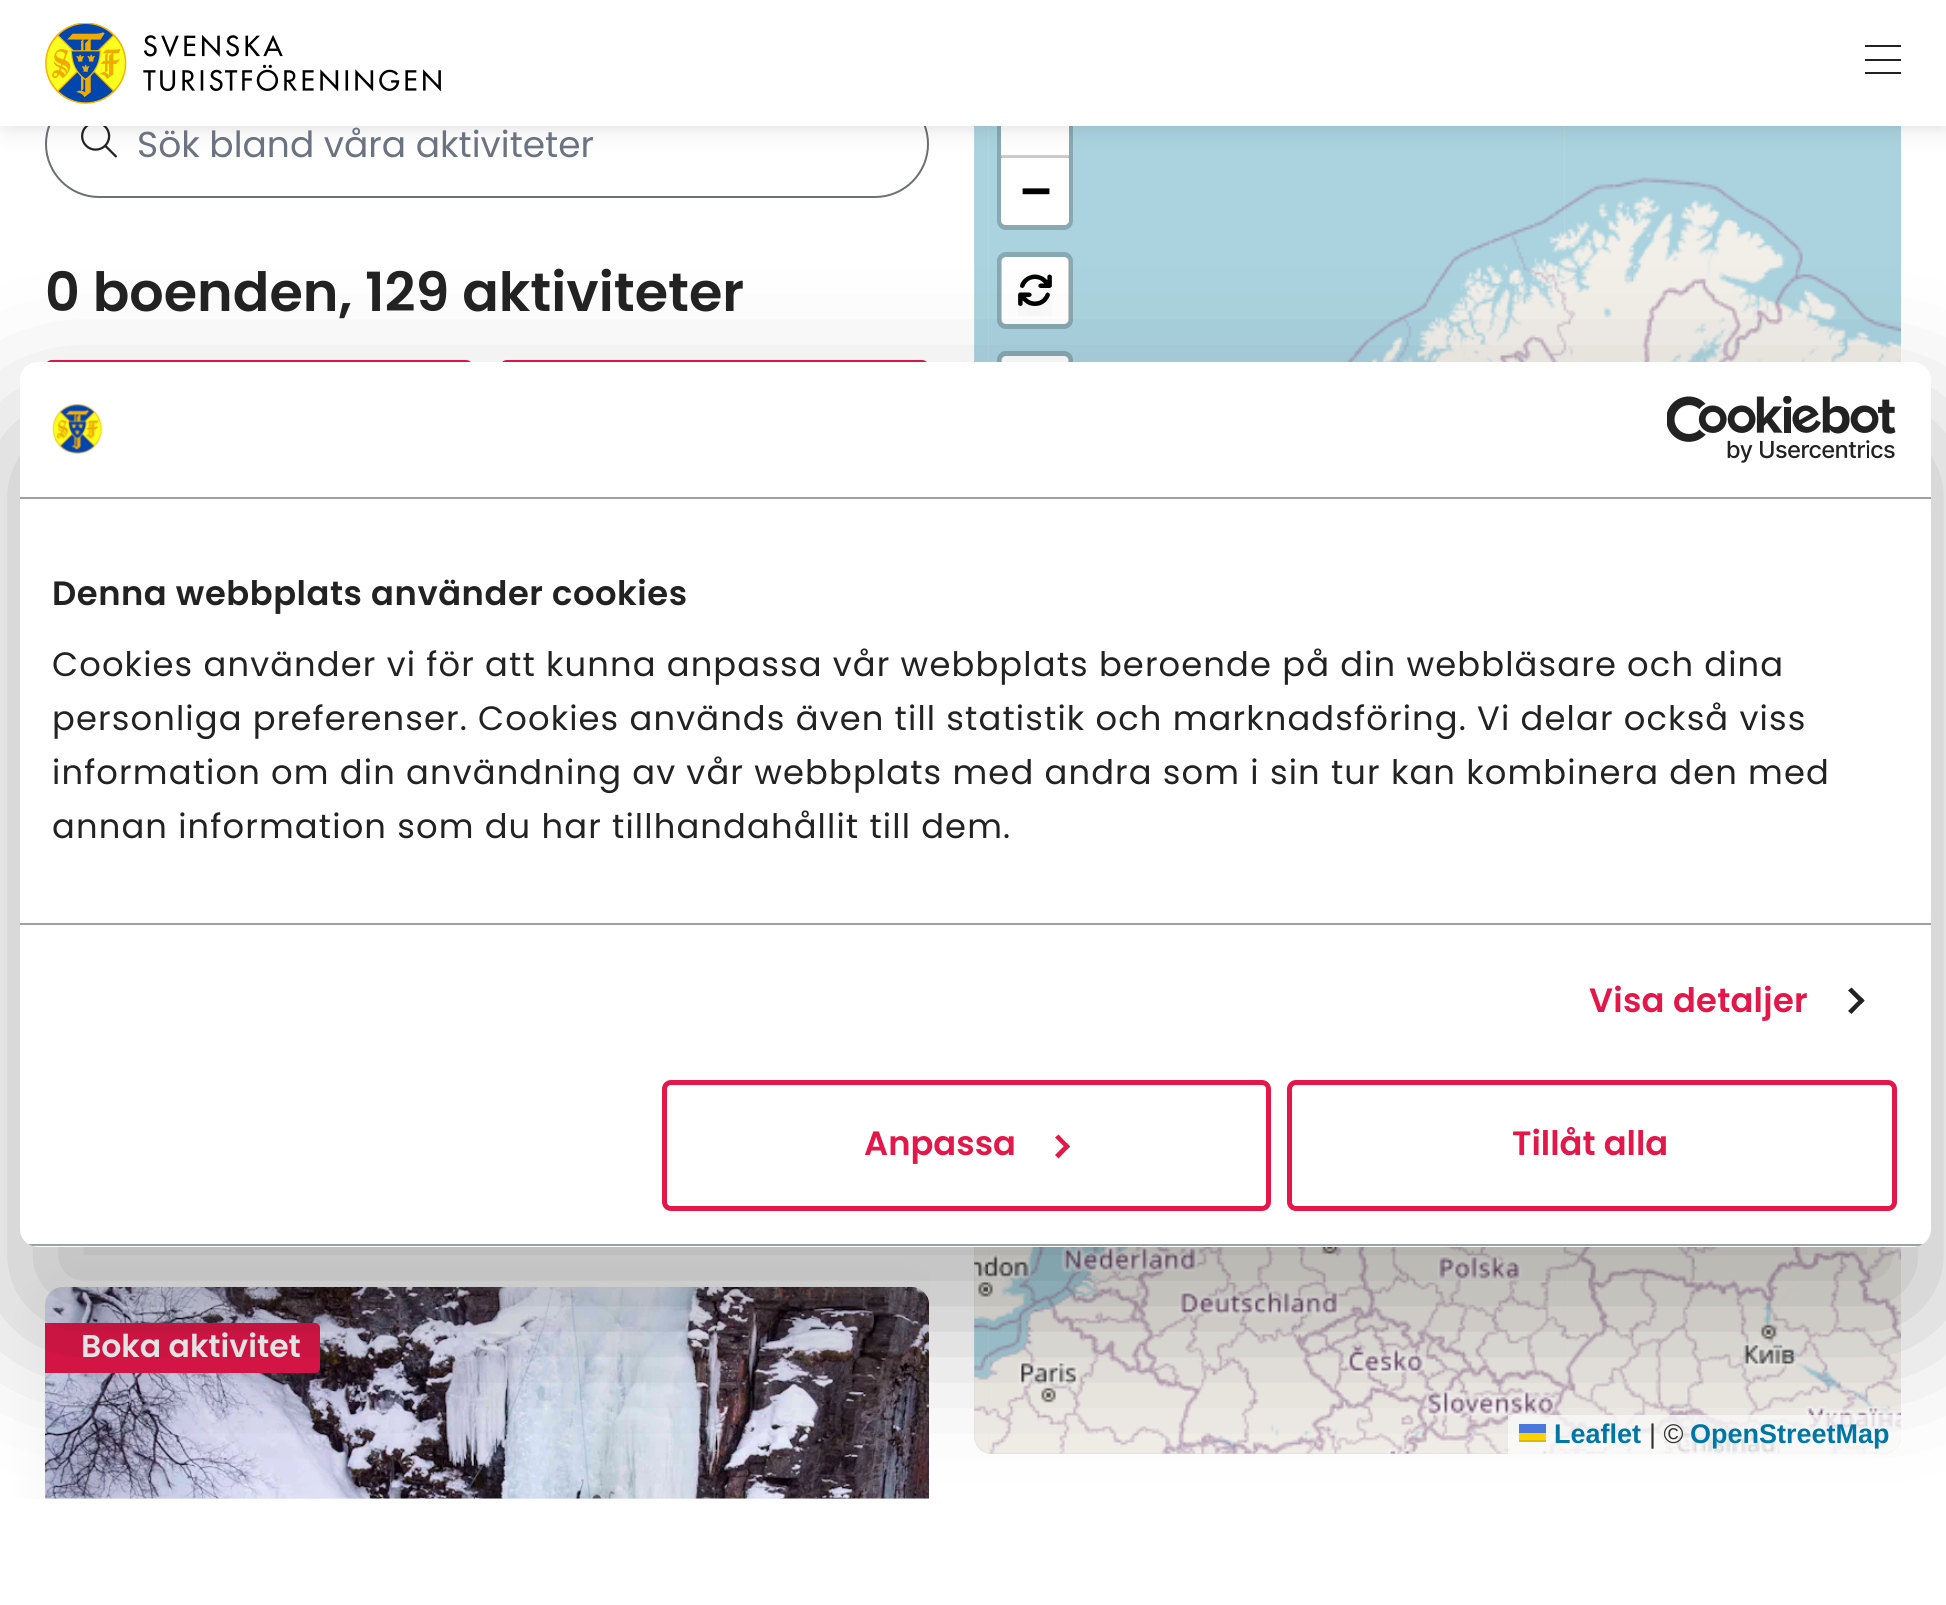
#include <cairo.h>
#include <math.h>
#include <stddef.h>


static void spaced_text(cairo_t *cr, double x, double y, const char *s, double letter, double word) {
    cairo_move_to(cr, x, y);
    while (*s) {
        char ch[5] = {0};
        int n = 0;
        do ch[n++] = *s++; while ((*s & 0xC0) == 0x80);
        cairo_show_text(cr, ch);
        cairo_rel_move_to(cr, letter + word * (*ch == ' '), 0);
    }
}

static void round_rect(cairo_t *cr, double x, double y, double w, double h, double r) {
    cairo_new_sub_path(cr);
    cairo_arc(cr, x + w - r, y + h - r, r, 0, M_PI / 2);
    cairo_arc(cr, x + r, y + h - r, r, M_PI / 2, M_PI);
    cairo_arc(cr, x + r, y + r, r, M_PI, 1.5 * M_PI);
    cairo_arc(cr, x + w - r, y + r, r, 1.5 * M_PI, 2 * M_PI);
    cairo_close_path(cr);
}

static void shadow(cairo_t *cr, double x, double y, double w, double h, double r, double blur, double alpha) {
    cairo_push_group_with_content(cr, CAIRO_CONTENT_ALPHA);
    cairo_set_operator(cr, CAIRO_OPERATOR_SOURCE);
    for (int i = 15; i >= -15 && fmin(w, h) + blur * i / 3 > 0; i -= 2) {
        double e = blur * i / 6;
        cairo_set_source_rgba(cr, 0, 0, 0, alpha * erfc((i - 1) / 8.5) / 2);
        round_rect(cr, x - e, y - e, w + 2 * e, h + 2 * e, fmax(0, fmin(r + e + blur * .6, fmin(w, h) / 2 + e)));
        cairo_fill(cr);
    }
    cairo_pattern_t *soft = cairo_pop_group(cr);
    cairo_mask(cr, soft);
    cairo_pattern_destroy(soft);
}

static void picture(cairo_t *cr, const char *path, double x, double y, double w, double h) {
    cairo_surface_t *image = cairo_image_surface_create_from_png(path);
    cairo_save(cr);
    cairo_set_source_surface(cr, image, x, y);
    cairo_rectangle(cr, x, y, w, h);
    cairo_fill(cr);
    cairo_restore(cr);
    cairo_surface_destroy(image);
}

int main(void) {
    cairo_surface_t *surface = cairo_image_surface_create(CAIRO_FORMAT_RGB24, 1946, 1605);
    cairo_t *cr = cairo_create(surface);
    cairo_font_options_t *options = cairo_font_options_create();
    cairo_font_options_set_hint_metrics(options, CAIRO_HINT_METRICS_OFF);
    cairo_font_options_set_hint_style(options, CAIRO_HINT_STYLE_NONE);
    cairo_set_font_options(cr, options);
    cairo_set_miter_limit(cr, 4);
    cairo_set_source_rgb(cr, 1, 1, 1);
    cairo_paint(cr);
    round_rect(cr, 46, 91, 882, 106, 53);
    cairo_set_source_rgb(cr, 0.424, 0.435, 0.451);
    cairo_stroke(cr);
    picture(cr, "img2.png", 81, 126, 36, 32);
    cairo_set_source_rgb(cr, 0.867, 0.867, 0.867);
    round_rect(cr, 974, 63, 927, 1391, 18);
    cairo_fill(cr);
    picture(cr, "img3.png", 974, 126, 14, 236);
    picture(cr, "img4.png", 988, 126, 576, 236);
    picture(cr, "img5.png", 1563, 126, 338, 236);
    round_rect(cr, 999.5, 88.5, 71, 139, 6.5);
    cairo_set_source_rgb(cr, 0.533, 0.663, 0.698);
    cairo_set_line_width(cr, 5);
    cairo_stroke(cr);
    cairo_set_source_rgb(cr, 1, 1, 1);
    cairo_rectangle(cr, 1001, 126, 68, 29);
    cairo_fill(cr);
    cairo_set_source_rgb(cr, 0.8, 0.8, 0.8);
    cairo_rectangle(cr, 1001, 155, 68, 2);
    cairo_fill(cr);
    cairo_set_source_rgb(cr, 1, 1, 1);
    cairo_new_path(cr);
    cairo_move_to(cr, 1001, 158);
    cairo_line_to(cr, 1069, 158);
    cairo_line_to(cr, 1069, 220);
    cairo_curve_to(cr, 1069, 223, 1067, 225, 1064, 225);
    cairo_line_to(cr, 1006, 225);
    cairo_curve_to(cr, 1003, 225, 1001, 223, 1001, 220);
    cairo_close_path(cr);
    cairo_fill(cr);
    cairo_set_source_rgb(cr, 0, 0, 0);
    shadow(cr, 5, 14, 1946, 126, 0, 9, 0.04);
    shadow(cr, 0, 5, 1946, 126, 0, 3.5, 0.04);
    cairo_set_source_rgb(cr, 1, 1, 1);
    cairo_rectangle(cr, 0, 2, 1946, 124);
    cairo_fill(cr);
    picture(cr, "img1.png", 45, 23, 396, 81);
    cairo_set_source_rgb(cr, 0.133, 0.133, 0.133);
    cairo_rectangle(cr, 1865, 45, 36, 2);
    cairo_fill(cr);
    cairo_rectangle(cr, 1865, 59, 36, 2);
    cairo_fill(cr);
    cairo_rectangle(cr, 1865, 72, 36, 2);
    cairo_fill(cr);
    cairo_select_font_face(cr, "Poppins", CAIRO_FONT_SLANT_NORMAL, CAIRO_FONT_WEIGHT_NORMAL);
    cairo_set_font_size(cr, 36);
    cairo_set_source_rgb(cr, 0.42, 0.447, 0.502);
    cairo_move_to(cr, 137, 157);
    cairo_show_text(cr, "Sök bland våra aktiviteter");
    cairo_select_font_face(cr, "Poppins SemiBold", CAIRO_FONT_SLANT_NORMAL, CAIRO_FONT_WEIGHT_NORMAL);
    cairo_set_font_size(cr, 54);
    cairo_set_source_rgb(cr, 0.133, 0.133, 0.133);
    cairo_move_to(cr, 45, 311);
    cairo_show_text(cr, "0 boenden, 129 aktiviteter");
    cairo_set_source_rgb(cr, 0.89, 0.09, 0.29);
    round_rect(cr, 45, 360, 428, 83, 7);
    cairo_fill(cr);
    round_rect(cr, 501, 361, 427, 81, 6);
    cairo_set_line_width(cr, 2);
    cairo_stroke(cr);
    picture(cr, "img7.png", 987, 1247, 577, 207);
    picture(cr, "img6.png", 974, 1247, 14, 206);
    picture(cr, "img8.png", 1563, 1247, 338, 207);
    cairo_select_font_face(cr, "DejaVu Sans Mono", CAIRO_FONT_SLANT_NORMAL, CAIRO_FONT_WEIGHT_BOLD);
    cairo_set_font_size(cr, 50);
    cairo_set_source_rgb(cr, 0, 0, 0);
    cairo_move_to(cr, 1021, 207);
    cairo_show_text(cr, "−");
    cairo_set_source_rgb(cr, 1, 1, 1);
    round_rect(cr, 1001, 257, 68, 67, 5);
    cairo_fill(cr);
    round_rect(cr, 999.5, 254.5, 71, 72, 6.5);
    cairo_set_source_rgba(cr, 0, 0, 0, 0.2);
    cairo_set_line_width(cr, 5);
    cairo_stroke(cr);
    picture(cr, "img9.png", 1018, 274, 34, 42);
    cairo_set_source_rgb(cr, 1, 1, 1);
    round_rect(cr, 1001, 356, 68, 67, 5);
    cairo_fill(cr);
    round_rect(cr, 999.5, 353.5, 71, 72, 6.5);
    cairo_set_source_rgba(cr, 0, 0, 0, 0.2);
    cairo_stroke(cr);
    cairo_set_source_rgba(cr, 1, 1, 1, 0.8);
    cairo_new_path(cr);
    cairo_move_to(cr, 1508, 1415);
    cairo_line_to(cr, 1901, 1415);
    cairo_line_to(cr, 1901, 1436);
    cairo_curve_to(cr, 1901, 1446, 1893, 1454, 1883, 1454);
    cairo_line_to(cr, 1508, 1454);
    cairo_close_path(cr);
    cairo_fill(cr);
    cairo_select_font_face(cr, "Liberation Sans", CAIRO_FONT_SLANT_NORMAL, CAIRO_FONT_WEIGHT_BOLD);
    cairo_set_font_size(cr, 27);
    cairo_set_source_rgb(cr, 0, 0.471, 0.659);
    cairo_move_to(cr, 1554, 1443);
    cairo_show_text(cr, "Leaflet");
    cairo_set_source_rgb(cr, 0.298, 0.482, 0.882);
    cairo_rectangle(cr, 1519, 1424, 27, 9);
    cairo_fill(cr);
    cairo_set_source_rgb(cr, 1, 0.835, 0);
    cairo_rectangle(cr, 1519, 1433, 27, 7);
    cairo_fill(cr);
    cairo_set_source_rgb(cr, 0.878, 0.737, 0);
    cairo_rectangle(cr, 1519, 1440, 27, 2);
    cairo_fill(cr);
    cairo_select_font_face(cr, "Liberation Sans", CAIRO_FONT_SLANT_NORMAL, CAIRO_FONT_WEIGHT_NORMAL);
    cairo_set_source_rgb(cr, 0.2, 0.2, 0.2);
    cairo_move_to(cr, 1649, 1443);
    cairo_show_text(cr, "| ©");
    cairo_select_font_face(cr, "Liberation Sans", CAIRO_FONT_SLANT_NORMAL, CAIRO_FONT_WEIGHT_BOLD);
    cairo_set_source_rgb(cr, 0, 0.471, 0.659);
    cairo_move_to(cr, 1690, 1443);
    cairo_show_text(cr, "OpenStreetMap");
    cairo_save(cr);
    cairo_rectangle(cr, 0, 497, 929, 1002);
    cairo_clip(cr);
    cairo_set_source_rgb(cr, 0, 0, 0);
    shadow(cr, 47, 1296, 885, 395, 18, 22.5, 0.05);
    cairo_restore(cr);
    picture(cr, "img10.png", 45, 1287, 884, 212);
    cairo_set_source_rgb(cr, 0.89, 0.09, 0.29);
    cairo_new_path(cr);
    cairo_move_to(cr, 45, 1323);
    cairo_line_to(cr, 315, 1323);
    cairo_curve_to(cr, 318, 1323, 320, 1325, 320, 1328);
    cairo_line_to(cr, 320, 1368);
    cairo_curve_to(cr, 320, 1371, 318, 1373, 315, 1373);
    cairo_line_to(cr, 45, 1373);
    cairo_close_path(cr);
    cairo_fill(cr);
    cairo_select_font_face(cr, "Poppins SemiBold", CAIRO_FONT_SLANT_NORMAL, CAIRO_FONT_WEIGHT_NORMAL);
    cairo_set_font_size(cr, 31.5);
    cairo_set_source_rgb(cr, 1, 1, 1);
    cairo_move_to(cr, 81, 1357);
    cairo_show_text(cr, "Boka aktivitet");
    cairo_set_source_rgb(cr, 0, 0, 0);
    shadow(cr, 20, 434, 1911, 885, 18, 76.5, 0.3);
    cairo_set_source_rgb(cr, 1, 1, 1);
    round_rect(cr, 20, 362, 1911, 885, 18);
    cairo_fill(cr);
    cairo_set_source_rgb(cr, 0.612, 0.631, 0.647);
    cairo_rectangle(cr, 20, 497, 1911, 2);
    cairo_fill(cr);
    picture(cr, "img11.png", 52, 404, 51, 51);
    picture(cr, "img12.png", 1667, 396, 229, 67);
    cairo_rectangle(cr, 20, 923, 1911, 2);
    cairo_fill(cr);
    cairo_set_font_size(cr, 33.75);
    cairo_set_source_rgb(cr, 0.133, 0.133, 0.133);
    spaced_text(cr, 52, 605, "Denna webbplats använder cookies", 0.55, 0);
    cairo_select_font_face(cr, "Poppins", CAIRO_FONT_SLANT_NORMAL, CAIRO_FONT_WEIGHT_NORMAL);
    spaced_text(cr, 52, 676, "Cookies använder vi för att kunna anpassa vår webbplats beroende på din webbläsare och dina", 1.12, 0);
    spaced_text(cr, 52, 730, "personliga preferenser. Cookies används även till statistik och marknadsföring. Vi delar också viss", 1.12, 0);
    spaced_text(cr, 52, 784, "information om din användning av vår webbplats med andra som i sin tur kan kombinera den med", 1.12, 0);
    spaced_text(cr, 52, 838, "annan information som du har tillhandahållit till dem.", 1.12, 0);
    cairo_select_font_face(cr, "Poppins SemiBold", CAIRO_FONT_SLANT_NORMAL, CAIRO_FONT_WEIGHT_NORMAL);
    cairo_set_source_rgb(cr, 0.89, 0.09, 0.29);
    spaced_text(cr, 1589, 1012, "Visa detaljer", 0.25, 0);
    cairo_set_source_rgb(cr, 0.133, 0.133, 0.133);
    cairo_new_path(cr);
    cairo_move_to(cr, 1851.5, 987.5);
    cairo_line_to(cr, 1864.5, 1000.5);
    cairo_line_to(cr, 1861.5, 1004);
    cairo_line_to(cr, 1848, 990.5);
    cairo_close_path(cr);
    cairo_fill(cr);
    cairo_new_path(cr);
    cairo_move_to(cr, 1861.5, 997.5);
    cairo_line_to(cr, 1864.5, 1000.5);
    cairo_line_to(cr, 1851.5, 1014);
    cairo_line_to(cr, 1848, 1011);
    cairo_close_path(cr);
    cairo_fill(cr);
    cairo_save(cr);
    round_rect(cr, 20, 362, 1911, 885, 18);
    cairo_clip(cr);
    cairo_set_source_rgb(cr, 0.612, 0.631, 0.647);
    cairo_rectangle(cr, 20, 1244, 1911, 2);
    cairo_fill(cr);
    cairo_restore(cr);
    round_rect(cr, 664.5, 1082.5, 604, 126, 6.5);
    cairo_set_source_rgb(cr, 0.89, 0.09, 0.29);
    cairo_stroke(cr);
    cairo_move_to(cr, 864, 1155);
    cairo_show_text(cr, "Anpassa");
    cairo_new_path(cr);
    cairo_move_to(cr, 1058.5, 1134.5);
    cairo_line_to(cr, 1070, 1146.5);
    cairo_line_to(cr, 1067, 1149.5);
    cairo_line_to(cr, 1055, 1137.5);
    cairo_close_path(cr);
    cairo_fill(cr);
    cairo_new_path(cr);
    cairo_move_to(cr, 1067, 1143);
    cairo_line_to(cr, 1070, 1146.5);
    cairo_line_to(cr, 1058.5, 1158.5);
    cairo_line_to(cr, 1055, 1155);
    cairo_close_path(cr);
    cairo_fill(cr);
    round_rect(cr, 1289.5, 1082.5, 605, 126, 6.5);
    cairo_stroke(cr);
    cairo_move_to(cr, 1512, 1155);
    cairo_show_text(cr, "Tillåt alla");
    cairo_surface_write_to_png(surface, "page.png");
    cairo_font_options_destroy(options);
    cairo_destroy(cr);
    cairo_surface_destroy(surface);
    return 0;
}
